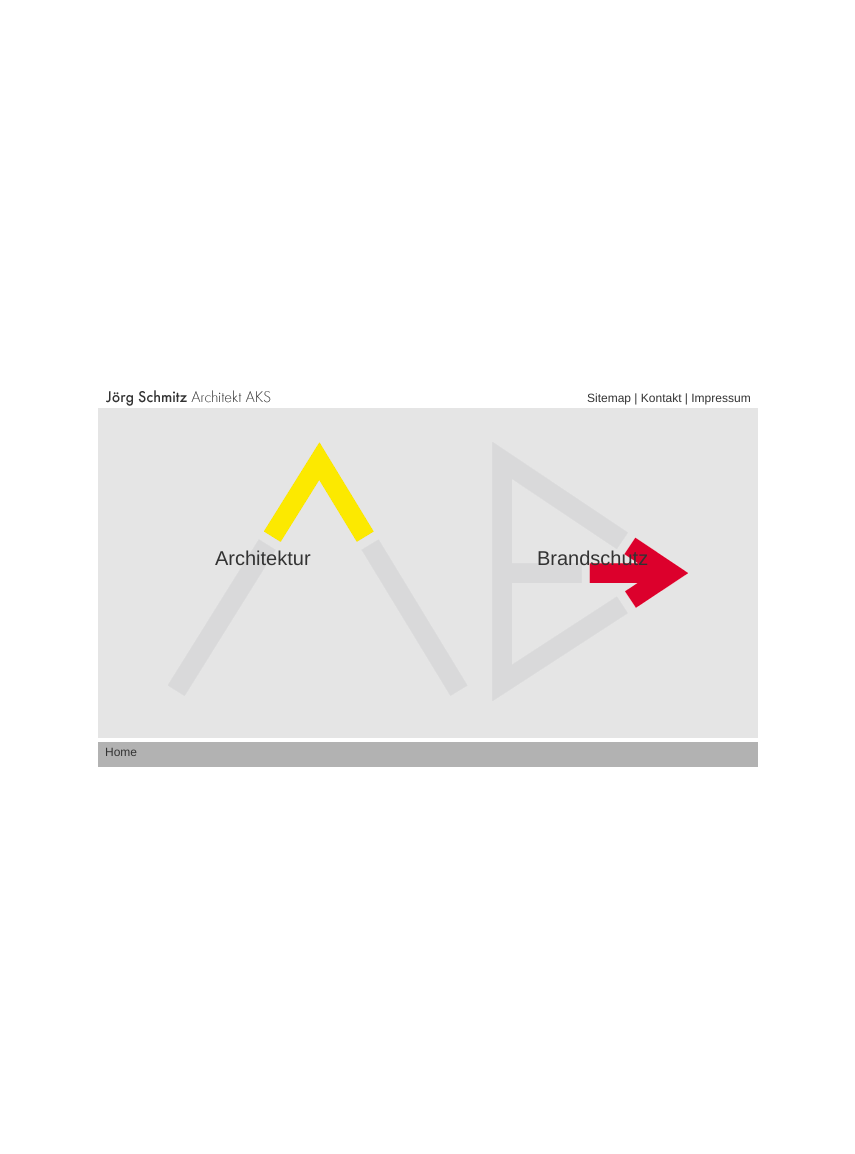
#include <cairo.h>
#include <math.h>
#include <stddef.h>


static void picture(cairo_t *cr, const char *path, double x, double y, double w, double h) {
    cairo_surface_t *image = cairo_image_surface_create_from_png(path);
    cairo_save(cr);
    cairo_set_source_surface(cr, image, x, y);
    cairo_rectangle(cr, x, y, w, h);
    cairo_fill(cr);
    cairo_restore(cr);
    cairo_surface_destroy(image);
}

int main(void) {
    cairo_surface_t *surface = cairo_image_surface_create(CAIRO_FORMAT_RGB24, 855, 1154);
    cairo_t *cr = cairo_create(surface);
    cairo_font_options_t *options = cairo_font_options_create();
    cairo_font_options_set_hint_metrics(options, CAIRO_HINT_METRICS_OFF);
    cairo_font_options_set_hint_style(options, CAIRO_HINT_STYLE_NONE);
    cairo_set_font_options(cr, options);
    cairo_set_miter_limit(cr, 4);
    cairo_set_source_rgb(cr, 1, 1, 1);
    cairo_paint(cr);
    picture(cr, "img1.png", 106, 390, 165, 16);
    cairo_select_font_face(cr, "Liberation Sans", CAIRO_FONT_SLANT_NORMAL, CAIRO_FONT_WEIGHT_NORMAL);
    cairo_set_font_size(cr, 12);
    cairo_set_source_rgb(cr, 0.2, 0.2, 0.2);
    cairo_move_to(cr, 587, 402);
    cairo_show_text(cr, "Sitemap | Kontakt | Impressum");
    cairo_set_source_rgb(cr, 0.898, 0.898, 0.898);
    cairo_rectangle(cr, 98, 408, 660, 330);
    cairo_fill(cr);
    picture(cr, "img2.png", 168, 442, 260, 254);
    cairo_set_font_size(cr, 20);
    cairo_set_source_rgb(cr, 0.2, 0.2, 0.2);
    cairo_move_to(cr, 215, 565);
    cairo_show_text(cr, "Architektur");
    picture(cr, "img3.png", 428, 442, 260, 259);
    cairo_move_to(cr, 537, 565);
    cairo_show_text(cr, "Brandschutz");
    cairo_set_source_rgb(cr, 0.698, 0.698, 0.698);
    cairo_rectangle(cr, 98, 742, 660, 25);
    cairo_fill(cr);
    cairo_set_font_size(cr, 12);
    cairo_set_source_rgb(cr, 0.2, 0.2, 0.2);
    cairo_move_to(cr, 105, 756);
    cairo_show_text(cr, "Home");
    cairo_surface_write_to_png(surface, "page.png");
    cairo_font_options_destroy(options);
    cairo_destroy(cr);
    cairo_surface_destroy(surface);
    return 0;
}
